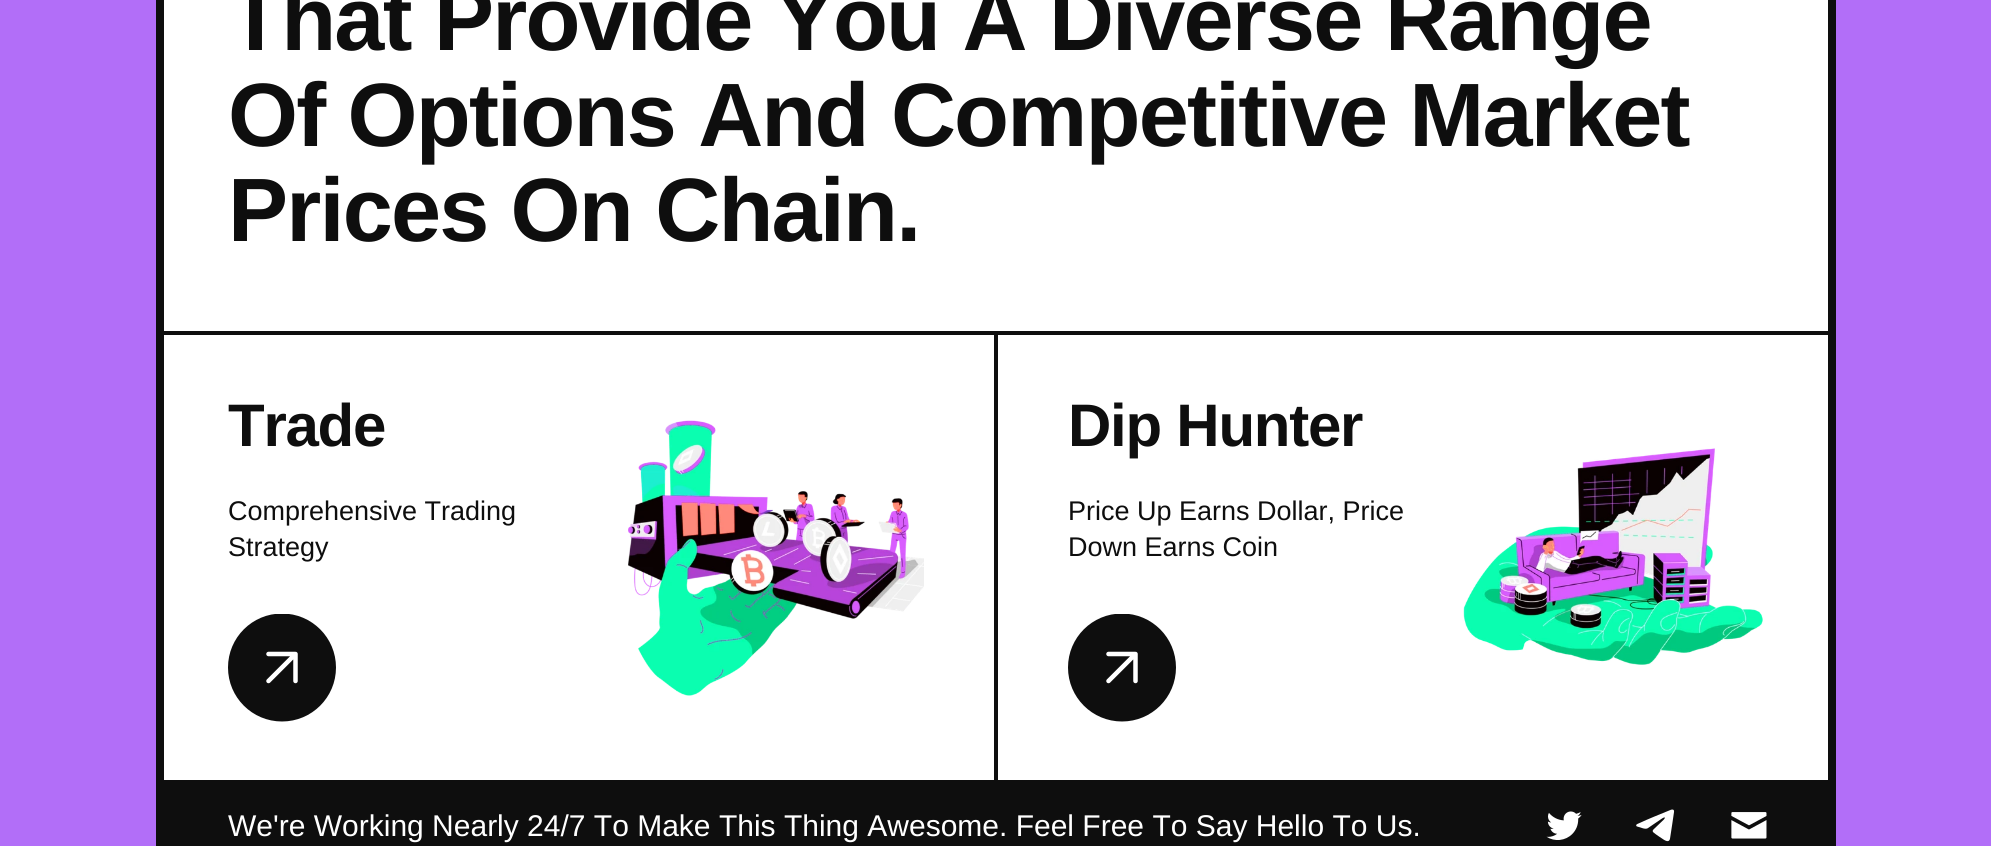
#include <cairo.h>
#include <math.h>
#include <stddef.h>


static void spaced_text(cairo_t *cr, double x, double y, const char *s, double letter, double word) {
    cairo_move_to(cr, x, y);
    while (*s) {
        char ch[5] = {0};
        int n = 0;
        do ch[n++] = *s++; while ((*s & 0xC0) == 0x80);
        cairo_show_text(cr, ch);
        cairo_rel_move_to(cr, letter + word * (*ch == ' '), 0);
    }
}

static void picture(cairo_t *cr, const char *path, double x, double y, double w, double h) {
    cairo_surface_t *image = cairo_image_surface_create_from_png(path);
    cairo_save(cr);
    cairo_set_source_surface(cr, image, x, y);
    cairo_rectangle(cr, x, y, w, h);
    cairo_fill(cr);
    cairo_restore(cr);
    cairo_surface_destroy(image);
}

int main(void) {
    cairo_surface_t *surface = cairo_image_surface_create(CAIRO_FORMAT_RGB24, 1991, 846);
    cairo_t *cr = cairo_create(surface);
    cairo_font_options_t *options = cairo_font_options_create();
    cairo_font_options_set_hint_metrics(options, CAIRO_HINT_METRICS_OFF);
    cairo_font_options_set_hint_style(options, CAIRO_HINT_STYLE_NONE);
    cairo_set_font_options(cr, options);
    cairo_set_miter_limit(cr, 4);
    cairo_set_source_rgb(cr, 0.698, 0.431, 0.969);
    cairo_paint(cr);
    cairo_set_source_rgb(cr, 1, 1, 1);
    cairo_rectangle(cr, 164, 0, 1664, 331);
    cairo_fill(cr);
    cairo_rectangle(cr, 157, -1, 1678, 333);
    cairo_set_source_rgb(cr, 0.055, 0.055, 0.055);
    cairo_stroke(cr);
    cairo_set_source_rgb(cr, 1, 1, 1);
    cairo_rectangle(cr, 164, 335, 830, 445);
    cairo_fill(cr);
    cairo_save(cr);
    cairo_rectangle(cr, 228, 614, 108, 108);
    cairo_clip(cr);
    cairo_set_source_rgb(cr, 0.055, 0.055, 0.055);
    cairo_arc(cr, 282, 667.5, 54, 0, 2 * M_PI);
    cairo_fill(cr);
    cairo_restore(cr);
    cairo_new_path(cr);
    cairo_move_to(cr, 268.5, 681);
    cairo_line_to(cr, 295.5, 654);
    cairo_move_to(cr, 295.5, 654);
    cairo_line_to(cr, 268.5, 654);
    cairo_move_to(cr, 295.5, 654);
    cairo_line_to(cr, 295.5, 681);
    cairo_set_line_width(cr, 4.5);
    cairo_set_line_cap(cr, CAIRO_LINE_CAP_ROUND);
    cairo_set_line_join(cr, CAIRO_LINE_JOIN_ROUND);
    cairo_stroke(cr);
    picture(cr, "img1.png", 628, 420, 296, 276);
    cairo_rectangle(cr, 157, 334, 838, 447);
    cairo_set_source_rgb(cr, 0.055, 0.055, 0.055);
    cairo_set_line_width(cr, 2);
    cairo_set_line_cap(cr, CAIRO_LINE_CAP_BUTT);
    cairo_set_line_join(cr, CAIRO_LINE_JOIN_MITER);
    cairo_stroke(cr);
    cairo_set_source_rgb(cr, 1, 1, 1);
    cairo_rectangle(cr, 998, 335, 830, 445);
    cairo_fill(cr);
    cairo_save(cr);
    cairo_rectangle(cr, 1068, 614, 108, 108);
    cairo_clip(cr);
    cairo_set_source_rgb(cr, 0.055, 0.055, 0.055);
    cairo_arc(cr, 1122, 667.5, 54, 0, 2 * M_PI);
    cairo_fill(cr);
    cairo_restore(cr);
    cairo_new_path(cr);
    cairo_move_to(cr, 1108.5, 681);
    cairo_line_to(cr, 1135.5, 654);
    cairo_move_to(cr, 1135.5, 654);
    cairo_line_to(cr, 1108.5, 654);
    cairo_move_to(cr, 1135.5, 654);
    cairo_line_to(cr, 1135.5, 681);
    cairo_set_line_width(cr, 4.5);
    cairo_set_line_cap(cr, CAIRO_LINE_CAP_ROUND);
    cairo_set_line_join(cr, CAIRO_LINE_JOIN_ROUND);
    cairo_stroke(cr);
    picture(cr, "img2.png", 1463, 448, 300, 217);
    cairo_rectangle(cr, 997, 334, 838, 447);
    cairo_set_source_rgb(cr, 0.055, 0.055, 0.055);
    cairo_set_line_width(cr, 2);
    cairo_set_line_cap(cr, CAIRO_LINE_CAP_BUTT);
    cairo_set_line_join(cr, CAIRO_LINE_JOIN_MITER);
    cairo_stroke(cr);
    cairo_rectangle(cr, 164, 782, 1664, 64);
    cairo_fill(cr);
    picture(cr, "img3.png", 1546, 811, 36, 29);
    picture(cr, "img4.png", 1636, 809, 39, 33);
    picture(cr, "img5.png", 1731, 812, 36, 27);
    cairo_rectangle(cr, 160, -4, 1672, 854);
    cairo_set_line_width(cr, 8);
    cairo_stroke(cr);
    cairo_select_font_face(cr, "Liberation Sans", CAIRO_FONT_SLANT_NORMAL, CAIRO_FONT_WEIGHT_BOLD);
    cairo_set_font_size(cr, 90);
    spaced_text(cr, 228, 50, "That Provide You A Diverse Range", -1.8, 0);
    spaced_text(cr, 228, 146, "Of Options And Competitive Market", -1.8, 0);
    spaced_text(cr, 228, 241, "Prices On Chain.", -1.8, 0);
    cairo_set_font_size(cr, 60);
    spaced_text(cr, 228, 446, "Trade", -1.25, 0);
    cairo_select_font_face(cr, "Liberation Sans", CAIRO_FONT_SLANT_NORMAL, CAIRO_FONT_WEIGHT_NORMAL);
    cairo_set_font_size(cr, 27);
    cairo_move_to(cr, 228, 520);
    cairo_show_text(cr, "Comprehensive Trading");
    cairo_move_to(cr, 228, 556);
    cairo_show_text(cr, "Strategy");
    cairo_select_font_face(cr, "Liberation Sans", CAIRO_FONT_SLANT_NORMAL, CAIRO_FONT_WEIGHT_BOLD);
    cairo_set_font_size(cr, 60);
    spaced_text(cr, 1068, 446, "Dip Hunter", -1.25, 0);
    cairo_select_font_face(cr, "Liberation Sans", CAIRO_FONT_SLANT_NORMAL, CAIRO_FONT_WEIGHT_NORMAL);
    cairo_set_font_size(cr, 27);
    cairo_move_to(cr, 1068, 520);
    cairo_show_text(cr, "Price Up Earns Dollar, Price");
    cairo_move_to(cr, 1068, 556);
    cairo_show_text(cr, "Down Earns Coin");
    cairo_set_font_size(cr, 30);
    cairo_set_source_rgb(cr, 1, 1, 1);
    cairo_move_to(cr, 228, 836);
    cairo_show_text(cr, "We're Working Nearly 24/7 To Make This Thing Awesome. Feel Free To Say Hello To Us.");
    cairo_surface_write_to_png(surface, "page.png");
    cairo_font_options_destroy(options);
    cairo_destroy(cr);
    cairo_surface_destroy(surface);
    return 0;
}
